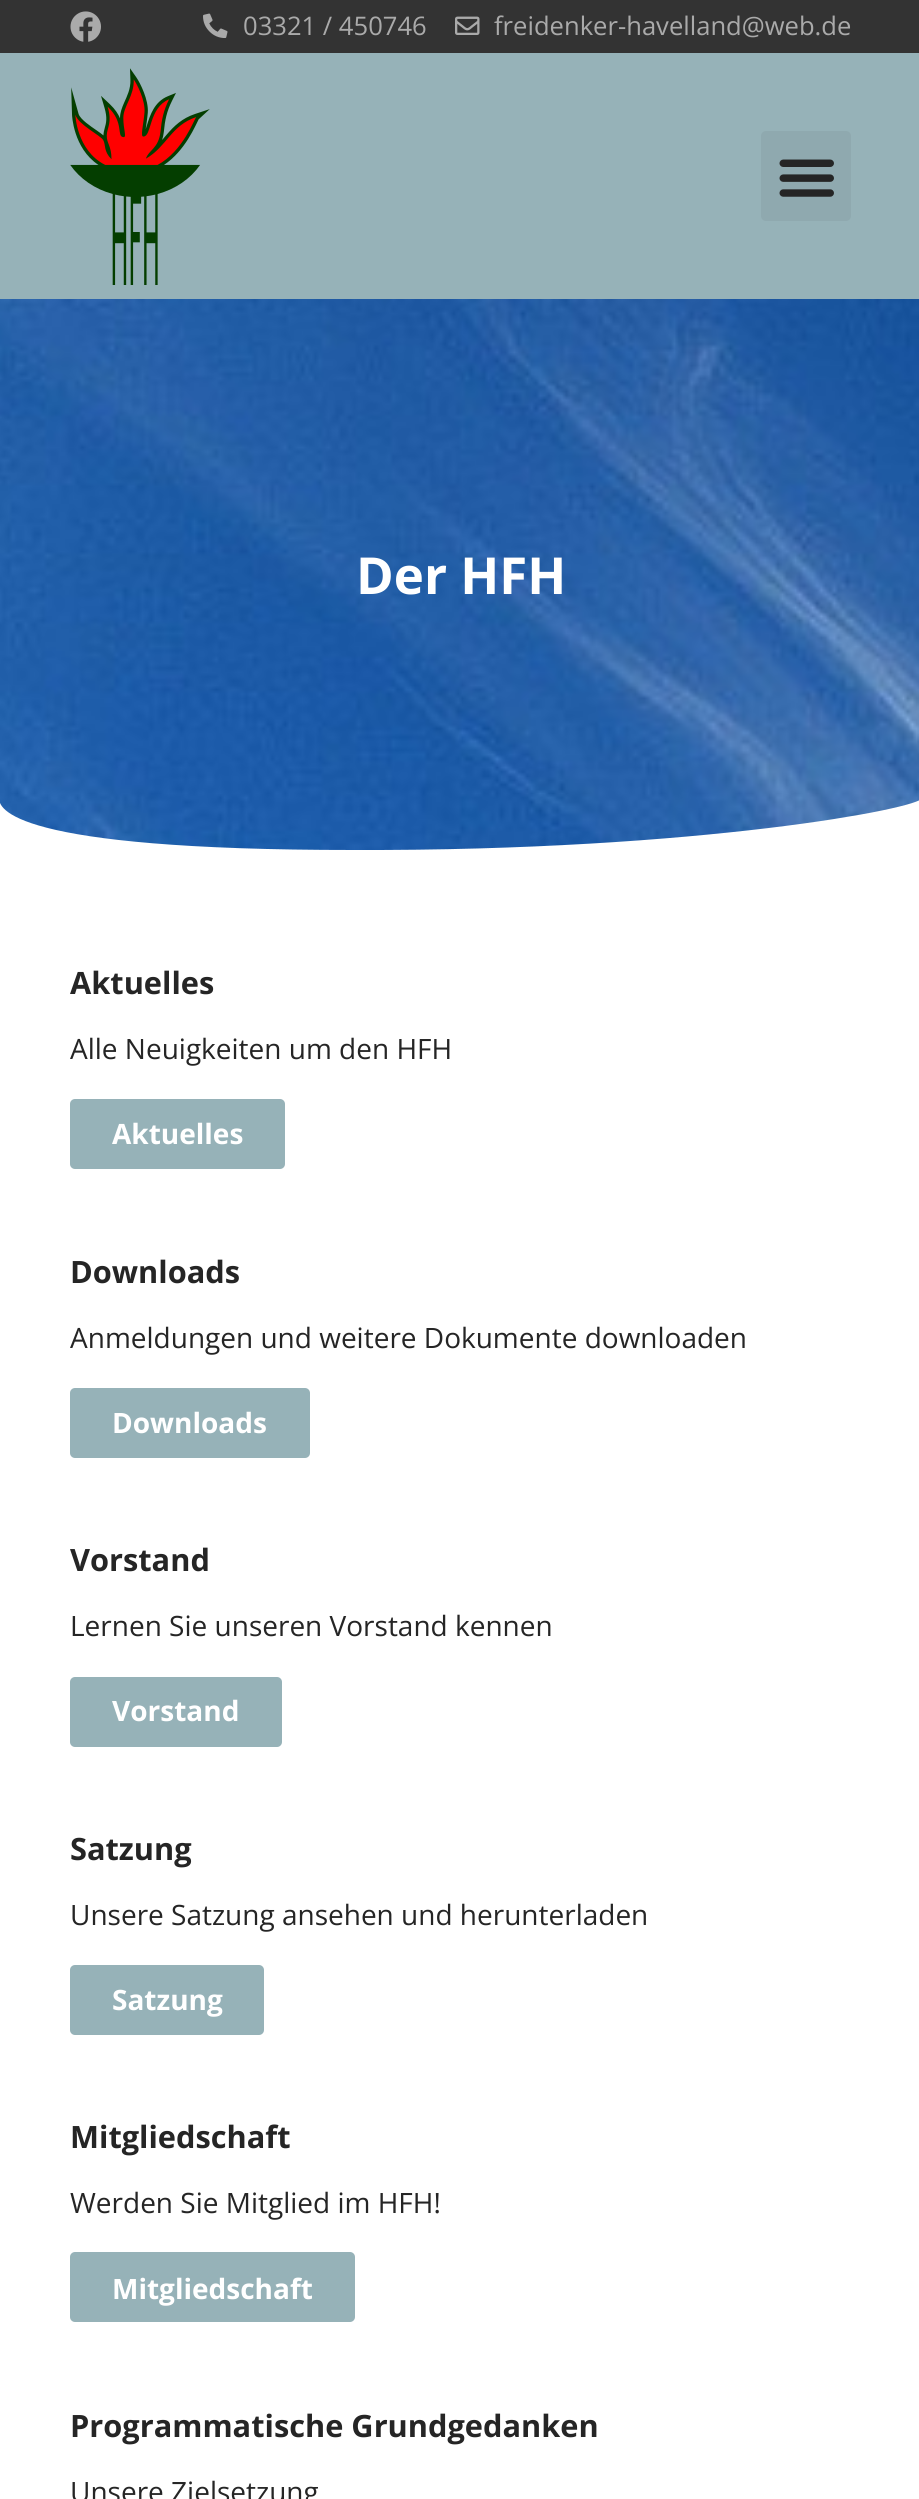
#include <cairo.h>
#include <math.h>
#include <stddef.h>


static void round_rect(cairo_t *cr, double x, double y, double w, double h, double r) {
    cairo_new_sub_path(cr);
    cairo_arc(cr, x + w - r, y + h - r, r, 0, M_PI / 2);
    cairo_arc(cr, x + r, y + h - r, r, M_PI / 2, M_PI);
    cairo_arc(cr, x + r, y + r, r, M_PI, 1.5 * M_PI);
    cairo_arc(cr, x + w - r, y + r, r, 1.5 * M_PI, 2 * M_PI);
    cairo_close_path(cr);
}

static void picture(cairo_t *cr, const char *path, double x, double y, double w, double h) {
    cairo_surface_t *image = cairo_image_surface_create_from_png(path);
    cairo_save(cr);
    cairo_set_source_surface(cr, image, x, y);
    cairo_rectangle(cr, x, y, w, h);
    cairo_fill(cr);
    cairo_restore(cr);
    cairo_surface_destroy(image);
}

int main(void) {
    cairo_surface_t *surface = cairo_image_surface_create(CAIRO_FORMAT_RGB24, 919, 2499);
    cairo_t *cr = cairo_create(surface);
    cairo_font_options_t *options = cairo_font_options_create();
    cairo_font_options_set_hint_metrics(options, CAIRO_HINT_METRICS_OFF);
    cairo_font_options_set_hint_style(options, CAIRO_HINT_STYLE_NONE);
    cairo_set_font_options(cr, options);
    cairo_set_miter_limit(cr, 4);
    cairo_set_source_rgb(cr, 1, 1, 1);
    cairo_paint(cr);
    cairo_set_source_rgb(cr, 0.2, 0.2, 0.2);
    cairo_rectangle(cr, 0, 0, 919, 53);
    cairo_fill(cr);
    picture(cr, "img1.png", 70, 11, 31, 31);
    picture(cr, "img2.png", 203, 13, 25, 25);
    cairo_select_font_face(cr, "Open Sans", CAIRO_FONT_SLANT_NORMAL, CAIRO_FONT_WEIGHT_NORMAL);
    cairo_set_font_size(cr, 25.6);
    cairo_set_source_rgb(cr, 0.667, 0.667, 0.667);
    cairo_move_to(cr, 243, 35);
    cairo_show_text(cr, "03321 / 450746");
    picture(cr, "img3.png", 455, 16, 25, 19);
    cairo_move_to(cr, 494, 35);
    cairo_show_text(cr, "freidenker-havelland@web.de");
    cairo_set_source_rgb(cr, 0.588, 0.698, 0.722);
    cairo_rectangle(cr, 0, 53, 919, 246);
    cairo_fill(cr);
    picture(cr, "img4.png", 70, 68, 140, 217);
    cairo_set_source_rgb(cr, 0.561, 0.663, 0.686);
    round_rect(cr, 761, 131, 90, 90, 5);
    cairo_fill(cr);
    picture(cr, "img5.png", 779, 159, 55, 38);
    picture(cr, "img6.png", 0, 299, 919, 551);
    cairo_select_font_face(cr, "Open Sans", CAIRO_FONT_SLANT_NORMAL, CAIRO_FONT_WEIGHT_BOLD);
    cairo_set_font_size(cr, 51);
    cairo_set_source_rgb(cr, 1, 1, 1);
    cairo_move_to(cr, 356, 594);
    cairo_show_text(cr, "Der HFH");
    cairo_new_path(cr);
    cairo_move_to(cr, 354, 850);
    cairo_curve_to(cr, 700, 851, 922, 808, 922, 798);
    cairo_line_to(cr, 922, 852);
    cairo_line_to(cr, -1, 852);
    cairo_line_to(cr, -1, 798);
    cairo_curve_to(cr, -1, 808, 8, 850, 354, 850);
    cairo_close_path(cr);
    cairo_fill(cr);
    cairo_set_font_size(cr, 30.75);
    cairo_set_source_rgb(cr, 0.145, 0.145, 0.145);
    cairo_move_to(cr, 70, 994);
    cairo_show_text(cr, "Aktuelles");
    cairo_select_font_face(cr, "Open Sans", CAIRO_FONT_SLANT_NORMAL, CAIRO_FONT_WEIGHT_NORMAL);
    cairo_set_font_size(cr, 28);
    cairo_move_to(cr, 70, 1059);
    cairo_show_text(cr, "Alle Neuigkeiten um den HFH");
    cairo_set_source_rgb(cr, 0.588, 0.698, 0.722);
    round_rect(cr, 70, 1099, 215, 70, 5);
    cairo_fill(cr);
    cairo_select_font_face(cr, "Open Sans", CAIRO_FONT_SLANT_NORMAL, CAIRO_FONT_WEIGHT_BOLD);
    cairo_set_source_rgb(cr, 1, 1, 1);
    cairo_move_to(cr, 112, 1144);
    cairo_show_text(cr, "Aktuelles");
    cairo_set_font_size(cr, 30.75);
    cairo_set_source_rgb(cr, 0.145, 0.145, 0.145);
    cairo_move_to(cr, 70, 1283);
    cairo_show_text(cr, "Downloads");
    cairo_select_font_face(cr, "Open Sans", CAIRO_FONT_SLANT_NORMAL, CAIRO_FONT_WEIGHT_NORMAL);
    cairo_set_font_size(cr, 28);
    cairo_move_to(cr, 70, 1348);
    cairo_show_text(cr, "Anmeldungen und weitere Dokumente downloaden");
    cairo_set_source_rgb(cr, 0.588, 0.698, 0.722);
    round_rect(cr, 70, 1388, 240, 70, 5);
    cairo_fill(cr);
    cairo_select_font_face(cr, "Open Sans", CAIRO_FONT_SLANT_NORMAL, CAIRO_FONT_WEIGHT_BOLD);
    cairo_set_source_rgb(cr, 1, 1, 1);
    cairo_move_to(cr, 112, 1433);
    cairo_show_text(cr, "Downloads");
    cairo_set_font_size(cr, 30.75);
    cairo_set_source_rgb(cr, 0.145, 0.145, 0.145);
    cairo_move_to(cr, 70, 1571);
    cairo_show_text(cr, "Vorstand");
    cairo_select_font_face(cr, "Open Sans", CAIRO_FONT_SLANT_NORMAL, CAIRO_FONT_WEIGHT_NORMAL);
    cairo_set_font_size(cr, 28);
    cairo_move_to(cr, 70, 1636);
    cairo_show_text(cr, "Lernen Sie unseren Vorstand kennen");
    cairo_set_source_rgb(cr, 0.588, 0.698, 0.722);
    round_rect(cr, 70, 1677, 212, 70, 5);
    cairo_fill(cr);
    cairo_select_font_face(cr, "Open Sans", CAIRO_FONT_SLANT_NORMAL, CAIRO_FONT_WEIGHT_BOLD);
    cairo_set_source_rgb(cr, 1, 1, 1);
    cairo_move_to(cr, 112, 1721);
    cairo_show_text(cr, "Vorstand");
    cairo_set_font_size(cr, 30.75);
    cairo_set_source_rgb(cr, 0.145, 0.145, 0.145);
    cairo_move_to(cr, 70, 1860);
    cairo_show_text(cr, "Satzung");
    cairo_select_font_face(cr, "Open Sans", CAIRO_FONT_SLANT_NORMAL, CAIRO_FONT_WEIGHT_NORMAL);
    cairo_set_font_size(cr, 28);
    cairo_move_to(cr, 70, 1925);
    cairo_show_text(cr, "Unsere Satzung ansehen und herunterladen");
    cairo_set_source_rgb(cr, 0.588, 0.698, 0.722);
    round_rect(cr, 70, 1965, 194, 70, 5);
    cairo_fill(cr);
    cairo_select_font_face(cr, "Open Sans", CAIRO_FONT_SLANT_NORMAL, CAIRO_FONT_WEIGHT_BOLD);
    cairo_set_source_rgb(cr, 1, 1, 1);
    cairo_move_to(cr, 112, 2010);
    cairo_show_text(cr, "Satzung");
    cairo_set_font_size(cr, 30.75);
    cairo_set_source_rgb(cr, 0.145, 0.145, 0.145);
    cairo_move_to(cr, 70, 2148);
    cairo_show_text(cr, "Mitgliedschaft");
    cairo_select_font_face(cr, "Open Sans", CAIRO_FONT_SLANT_NORMAL, CAIRO_FONT_WEIGHT_NORMAL);
    cairo_set_font_size(cr, 28);
    cairo_move_to(cr, 70, 2213);
    cairo_show_text(cr, "Werden Sie Mitglied im HFH!");
    cairo_set_source_rgb(cr, 0.588, 0.698, 0.722);
    round_rect(cr, 70, 2252, 285, 70, 5);
    cairo_fill(cr);
    cairo_select_font_face(cr, "Open Sans", CAIRO_FONT_SLANT_NORMAL, CAIRO_FONT_WEIGHT_BOLD);
    cairo_set_source_rgb(cr, 1, 1, 1);
    cairo_move_to(cr, 112, 2299);
    cairo_show_text(cr, "Mitgliedschaft");
    cairo_set_font_size(cr, 30.75);
    cairo_set_source_rgb(cr, 0.145, 0.145, 0.145);
    cairo_move_to(cr, 70, 2437);
    cairo_show_text(cr, "Programmatische Grundgedanken");
    cairo_select_font_face(cr, "Open Sans", CAIRO_FONT_SLANT_NORMAL, CAIRO_FONT_WEIGHT_NORMAL);
    cairo_set_font_size(cr, 28);
    cairo_move_to(cr, 70, 2502);
    cairo_show_text(cr, "Unsere Zielsetzung");
    cairo_surface_write_to_png(surface, "page.png");
    cairo_font_options_destroy(options);
    cairo_destroy(cr);
    cairo_surface_destroy(surface);
    return 0;
}
